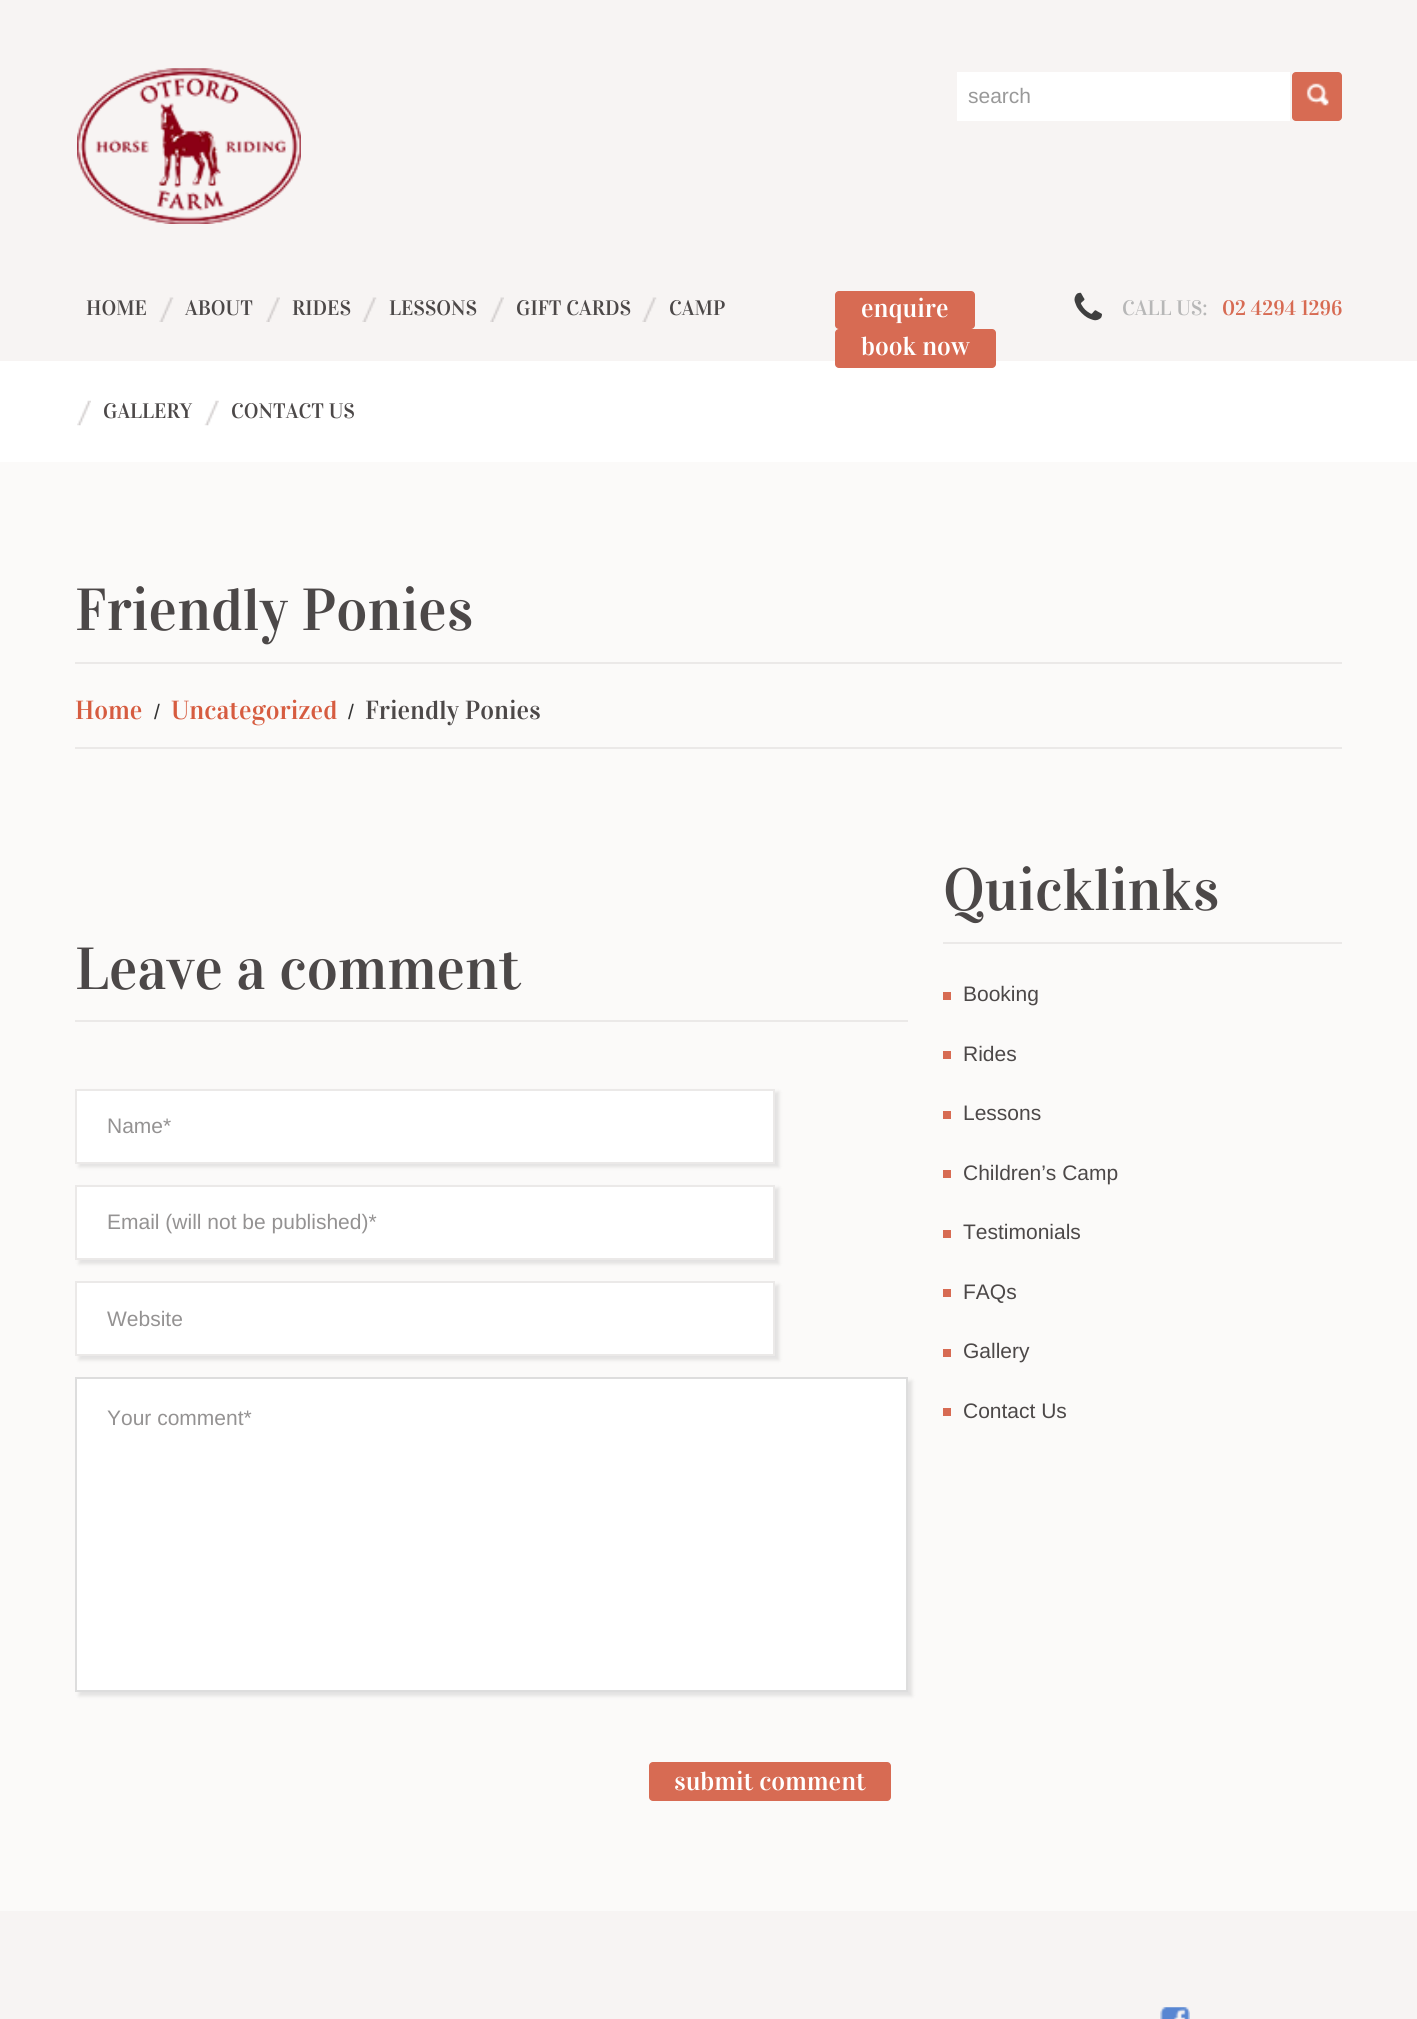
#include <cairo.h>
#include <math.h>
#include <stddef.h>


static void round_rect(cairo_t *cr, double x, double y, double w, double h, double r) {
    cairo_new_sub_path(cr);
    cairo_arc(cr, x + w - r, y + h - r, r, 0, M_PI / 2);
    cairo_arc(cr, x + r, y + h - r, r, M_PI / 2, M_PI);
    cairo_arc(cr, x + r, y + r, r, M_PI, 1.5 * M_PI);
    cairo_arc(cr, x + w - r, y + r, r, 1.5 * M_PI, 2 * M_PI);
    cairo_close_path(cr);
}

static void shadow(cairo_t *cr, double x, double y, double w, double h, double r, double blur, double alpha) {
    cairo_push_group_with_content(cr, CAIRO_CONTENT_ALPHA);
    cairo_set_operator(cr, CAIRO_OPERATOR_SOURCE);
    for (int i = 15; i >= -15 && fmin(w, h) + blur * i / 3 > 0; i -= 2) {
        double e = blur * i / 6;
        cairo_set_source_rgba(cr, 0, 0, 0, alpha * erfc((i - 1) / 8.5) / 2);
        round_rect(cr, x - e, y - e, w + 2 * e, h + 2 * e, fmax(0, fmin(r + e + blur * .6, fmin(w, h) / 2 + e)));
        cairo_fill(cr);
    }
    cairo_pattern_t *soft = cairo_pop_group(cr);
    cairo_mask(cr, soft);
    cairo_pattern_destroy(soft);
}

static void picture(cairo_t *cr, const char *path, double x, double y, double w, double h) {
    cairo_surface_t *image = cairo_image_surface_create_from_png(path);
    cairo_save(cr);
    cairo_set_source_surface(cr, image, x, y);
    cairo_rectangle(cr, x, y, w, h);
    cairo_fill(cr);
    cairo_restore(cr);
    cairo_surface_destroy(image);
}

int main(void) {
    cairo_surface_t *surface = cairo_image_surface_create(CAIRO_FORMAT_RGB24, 1417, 2019);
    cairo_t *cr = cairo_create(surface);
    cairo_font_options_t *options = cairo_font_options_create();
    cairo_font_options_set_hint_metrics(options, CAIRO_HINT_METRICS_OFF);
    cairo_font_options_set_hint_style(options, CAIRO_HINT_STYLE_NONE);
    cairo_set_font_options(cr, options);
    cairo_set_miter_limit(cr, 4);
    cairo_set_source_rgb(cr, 0.965, 0.957, 0.953);
    cairo_paint(cr);
    picture(cr, "img1.png", 77, 68, 224, 156);
    cairo_set_source_rgb(cr, 1, 1, 1);
    cairo_rectangle(cr, 957, 72, 333, 49);
    cairo_fill(cr);
    cairo_select_font_face(cr, "Liberation Sans", CAIRO_FONT_SLANT_NORMAL, CAIRO_FONT_WEIGHT_NORMAL);
    cairo_set_font_size(cr, 21);
    cairo_set_source_rgb(cr, 0.6, 0.6, 0.6);
    cairo_move_to(cr, 968, 103);
    cairo_show_text(cr, "search");
    cairo_set_source_rgb(cr, 0.843, 0.42, 0.325);
    round_rect(cr, 1292, 72, 50, 49, 4);
    cairo_fill(cr);
    picture(cr, "img2.png", 1306, 83, 23, 23);
    cairo_select_font_face(cr, "Vidaloka", CAIRO_FONT_SLANT_NORMAL, CAIRO_FONT_WEIGHT_NORMAL);
    cairo_set_source_rgb(cr, 0.298, 0.282, 0.282);
    cairo_move_to(cr, 86, 315);
    cairo_show_text(cr, "HOME");
    picture(cr, "img3.png", 159, 297, 15, 25);
    cairo_move_to(cr, 185, 315);
    cairo_show_text(cr, "ABOUT");
    picture(cr, "img4.png", 266, 297, 14, 25);
    cairo_move_to(cr, 292, 315);
    cairo_show_text(cr, "RIDES");
    picture(cr, "img3.png", 362, 297, 15, 25);
    cairo_move_to(cr, 389, 315);
    cairo_show_text(cr, "LESSONS");
    picture(cr, "img5.png", 490, 297, 14, 25);
    cairo_move_to(cr, 516, 315);
    cairo_show_text(cr, "GIFT CARDS");
    picture(cr, "img6.png", 642, 297, 15, 25);
    cairo_move_to(cr, 669, 315);
    cairo_show_text(cr, "CAMP");
    cairo_set_source_rgb(cr, 1, 1, 1);
    cairo_rectangle(cr, 0, 361, 1417, 101);
    cairo_fill(cr);
    picture(cr, "img7.png", 77, 400, 14, 26);
    cairo_set_source_rgb(cr, 0.298, 0.282, 0.282);
    cairo_move_to(cr, 103, 418);
    cairo_show_text(cr, "GALLERY");
    picture(cr, "img8.png", 204, 400, 15, 26);
    cairo_move_to(cr, 231, 418);
    cairo_show_text(cr, "CONTACT US");
    cairo_set_source_rgb(cr, 0.843, 0.42, 0.325);
    round_rect(cr, 835, 291, 140, 38, 4);
    cairo_fill(cr);
    cairo_set_font_size(cr, 26.25);
    cairo_set_source_rgb(cr, 1, 1, 1);
    cairo_move_to(cr, 861, 317);
    cairo_show_text(cr, "enquire");
    picture(cr, "img9.png", 1074, 292, 28, 29);
    cairo_set_font_size(cr, 21);
    cairo_set_source_rgb(cr, 0.718, 0.718, 0.718);
    cairo_move_to(cr, 1122, 315);
    cairo_show_text(cr, "CALL US:");
    cairo_set_source_rgb(cr, 0.843, 0.42, 0.325);
    round_rect(cr, 835, 329, 161, 39, 4);
    cairo_fill(cr);
    cairo_set_font_size(cr, 26.25);
    cairo_set_source_rgb(cr, 1, 1, 1);
    cairo_move_to(cr, 861, 355);
    cairo_show_text(cr, "book now");
    cairo_set_font_size(cr, 21);
    cairo_set_source_rgb(cr, 0.843, 0.42, 0.325);
    cairo_move_to(cr, 1222, 315);
    cairo_show_text(cr, "02 4294 1296");
    cairo_set_source_rgb(cr, 0.984, 0.98, 0.976);
    cairo_rectangle(cr, 0, 462, 1417, 1449);
    cairo_fill(cr);
    cairo_set_font_size(cr, 59.5);
    cairo_set_source_rgb(cr, 0.298, 0.282, 0.282);
    cairo_move_to(cr, 75, 630);
    cairo_show_text(cr, "Friendly Ponies");
    cairo_set_source_rgb(cr, 0.918, 0.914, 0.91);
    cairo_rectangle(cr, 75, 662, 1267, 2);
    cairo_fill(cr);
    cairo_rectangle(cr, 75, 747, 1267, 2);
    cairo_fill(cr);
    cairo_set_font_size(cr, 26.25);
    cairo_set_source_rgb(cr, 0.839, 0.361, 0.251);
    cairo_move_to(cr, 75, 719);
    cairo_show_text(cr, "Home");
    cairo_select_font_face(cr, "Liberation Sans", CAIRO_FONT_SLANT_NORMAL, CAIRO_FONT_WEIGHT_NORMAL);
    cairo_set_font_size(cr, 21);
    cairo_set_source_rgb(cr, 0.2, 0.2, 0.2);
    cairo_move_to(cr, 154, 719);
    cairo_show_text(cr, "/");
    cairo_select_font_face(cr, "Vidaloka", CAIRO_FONT_SLANT_NORMAL, CAIRO_FONT_WEIGHT_NORMAL);
    cairo_set_font_size(cr, 26.25);
    cairo_set_source_rgb(cr, 0.839, 0.361, 0.251);
    cairo_move_to(cr, 171, 719);
    cairo_show_text(cr, "Uncategorized");
    cairo_select_font_face(cr, "Liberation Sans", CAIRO_FONT_SLANT_NORMAL, CAIRO_FONT_WEIGHT_NORMAL);
    cairo_set_font_size(cr, 21);
    cairo_set_source_rgb(cr, 0.2, 0.2, 0.2);
    cairo_move_to(cr, 348, 719);
    cairo_show_text(cr, "/");
    cairo_select_font_face(cr, "Vidaloka", CAIRO_FONT_SLANT_NORMAL, CAIRO_FONT_WEIGHT_NORMAL);
    cairo_set_font_size(cr, 26.25);
    cairo_set_source_rgb(cr, 0.298, 0.282, 0.282);
    cairo_move_to(cr, 365, 719);
    cairo_show_text(cr, "Friendly Ponies");
    cairo_set_source_rgb(cr, 0.918, 0.914, 0.91);
    cairo_rectangle(cr, 75, 1020, 833, 2);
    cairo_fill(cr);
    cairo_set_font_size(cr, 59.5);
    cairo_set_source_rgb(cr, 0.298, 0.282, 0.282);
    cairo_move_to(cr, 75, 989);
    cairo_show_text(cr, "Leave a comment");
    cairo_set_source_rgb(cr, 0, 0, 0);
    shadow(cr, 79, 1092, 700, 75, 0, 2, 0.1);
    cairo_set_source_rgb(cr, 1, 1, 1);
    cairo_rectangle(cr, 76, 1090, 698, 73);
    cairo_fill_preserve(cr);
    cairo_set_source_rgb(cr, 0.918, 0.914, 0.91);
    cairo_stroke(cr);
    cairo_select_font_face(cr, "Liberation Sans", CAIRO_FONT_SLANT_NORMAL, CAIRO_FONT_WEIGHT_NORMAL);
    cairo_set_font_size(cr, 21);
    cairo_set_source_rgb(cr, 0.58, 0.573, 0.573);
    cairo_move_to(cr, 107, 1133);
    cairo_show_text(cr, "Name*");
    cairo_set_source_rgb(cr, 0, 0, 0);
    shadow(cr, 79, 1188, 700, 76, 0, 2, 0.1);
    cairo_set_source_rgb(cr, 1, 1, 1);
    cairo_rectangle(cr, 76, 1186, 698, 73);
    cairo_fill_preserve(cr);
    cairo_set_source_rgb(cr, 0.918, 0.914, 0.91);
    cairo_stroke(cr);
    cairo_set_source_rgb(cr, 0.58, 0.573, 0.573);
    cairo_move_to(cr, 107, 1229);
    cairo_show_text(cr, "Email (will not be published)*");
    cairo_set_source_rgb(cr, 0, 0, 0);
    shadow(cr, 79, 1285, 700, 75, 0, 2, 0.1);
    cairo_set_source_rgb(cr, 1, 1, 1);
    cairo_rectangle(cr, 76, 1282, 698, 73);
    cairo_fill_preserve(cr);
    cairo_set_source_rgb(cr, 0.918, 0.914, 0.91);
    cairo_stroke(cr);
    cairo_set_source_rgb(cr, 0.58, 0.573, 0.573);
    cairo_move_to(cr, 107, 1326);
    cairo_show_text(cr, "Website");
    cairo_set_source_rgb(cr, 0, 0, 0);
    shadow(cr, 79, 1381, 833, 315, 0, 2, 0.1);
    cairo_set_source_rgb(cr, 1, 1, 1);
    cairo_rectangle(cr, 76, 1378, 831, 313);
    cairo_fill_preserve(cr);
    cairo_set_source_rgb(cr, 0.867, 0.867, 0.867);
    cairo_stroke(cr);
    cairo_set_source_rgb(cr, 0.58, 0.573, 0.573);
    cairo_move_to(cr, 107, 1425);
    cairo_show_text(cr, "Your comment*");
    cairo_set_source_rgb(cr, 0.843, 0.42, 0.325);
    round_rect(cr, 649, 1762, 242, 39, 4);
    cairo_fill(cr);
    cairo_select_font_face(cr, "Vidaloka", CAIRO_FONT_SLANT_NORMAL, CAIRO_FONT_WEIGHT_NORMAL);
    cairo_set_font_size(cr, 26.25);
    cairo_set_source_rgb(cr, 1, 1, 1);
    cairo_move_to(cr, 674, 1790);
    cairo_show_text(cr, "submit comment");
    cairo_set_source_rgb(cr, 0.918, 0.914, 0.91);
    cairo_rectangle(cr, 943, 942, 399, 2);
    cairo_fill(cr);
    cairo_set_font_size(cr, 59.5);
    cairo_set_source_rgb(cr, 0.298, 0.282, 0.282);
    cairo_move_to(cr, 943, 910);
    cairo_show_text(cr, "Quicklinks");
    cairo_set_source_rgb(cr, 0.843, 0.42, 0.325);
    cairo_rectangle(cr, 943, 992, 8, 8);
    cairo_fill(cr);
    cairo_select_font_face(cr, "Liberation Sans", CAIRO_FONT_SLANT_NORMAL, CAIRO_FONT_WEIGHT_NORMAL);
    cairo_set_font_size(cr, 21);
    cairo_set_source_rgb(cr, 0.298, 0.282, 0.282);
    cairo_move_to(cr, 963, 1001);
    cairo_show_text(cr, "Booking");
    cairo_set_source_rgb(cr, 0.843, 0.42, 0.325);
    cairo_rectangle(cr, 943, 1051, 8, 8);
    cairo_fill(cr);
    cairo_set_source_rgb(cr, 0.298, 0.282, 0.282);
    cairo_move_to(cr, 963, 1061);
    cairo_show_text(cr, "Rides");
    cairo_set_source_rgb(cr, 0.843, 0.42, 0.325);
    cairo_rectangle(cr, 943, 1111, 8, 8);
    cairo_fill(cr);
    cairo_set_source_rgb(cr, 0.298, 0.282, 0.282);
    cairo_move_to(cr, 963, 1120);
    cairo_show_text(cr, "Lessons");
    cairo_set_source_rgb(cr, 0.843, 0.42, 0.325);
    cairo_rectangle(cr, 943, 1170, 8, 8);
    cairo_fill(cr);
    cairo_set_source_rgb(cr, 0.298, 0.282, 0.282);
    cairo_move_to(cr, 963, 1180);
    cairo_show_text(cr, "Children’s Camp");
    cairo_set_source_rgb(cr, 0.843, 0.42, 0.325);
    cairo_rectangle(cr, 943, 1230, 8, 8);
    cairo_fill(cr);
    cairo_set_source_rgb(cr, 0.298, 0.282, 0.282);
    cairo_move_to(cr, 963, 1239);
    cairo_show_text(cr, "Testimonials");
    cairo_set_source_rgb(cr, 0.843, 0.42, 0.325);
    cairo_rectangle(cr, 943, 1289, 8, 8);
    cairo_fill(cr);
    cairo_set_source_rgb(cr, 0.298, 0.282, 0.282);
    cairo_move_to(cr, 963, 1299);
    cairo_show_text(cr, "FAQs");
    cairo_set_source_rgb(cr, 0.843, 0.42, 0.325);
    cairo_rectangle(cr, 943, 1349, 8, 8);
    cairo_fill(cr);
    cairo_set_source_rgb(cr, 0.298, 0.282, 0.282);
    cairo_move_to(cr, 963, 1358);
    cairo_show_text(cr, "Gallery");
    cairo_set_source_rgb(cr, 0.843, 0.42, 0.325);
    cairo_rectangle(cr, 943, 1408, 8, 8);
    cairo_fill(cr);
    cairo_set_source_rgb(cr, 0.298, 0.282, 0.282);
    cairo_move_to(cr, 963, 1418);
    cairo_show_text(cr, "Contact Us");
    picture(cr, "img10.png", 1160, 2007, 30, 12);
    cairo_surface_write_to_png(surface, "page.png");
    cairo_font_options_destroy(options);
    cairo_destroy(cr);
    cairo_surface_destroy(surface);
    return 0;
}
